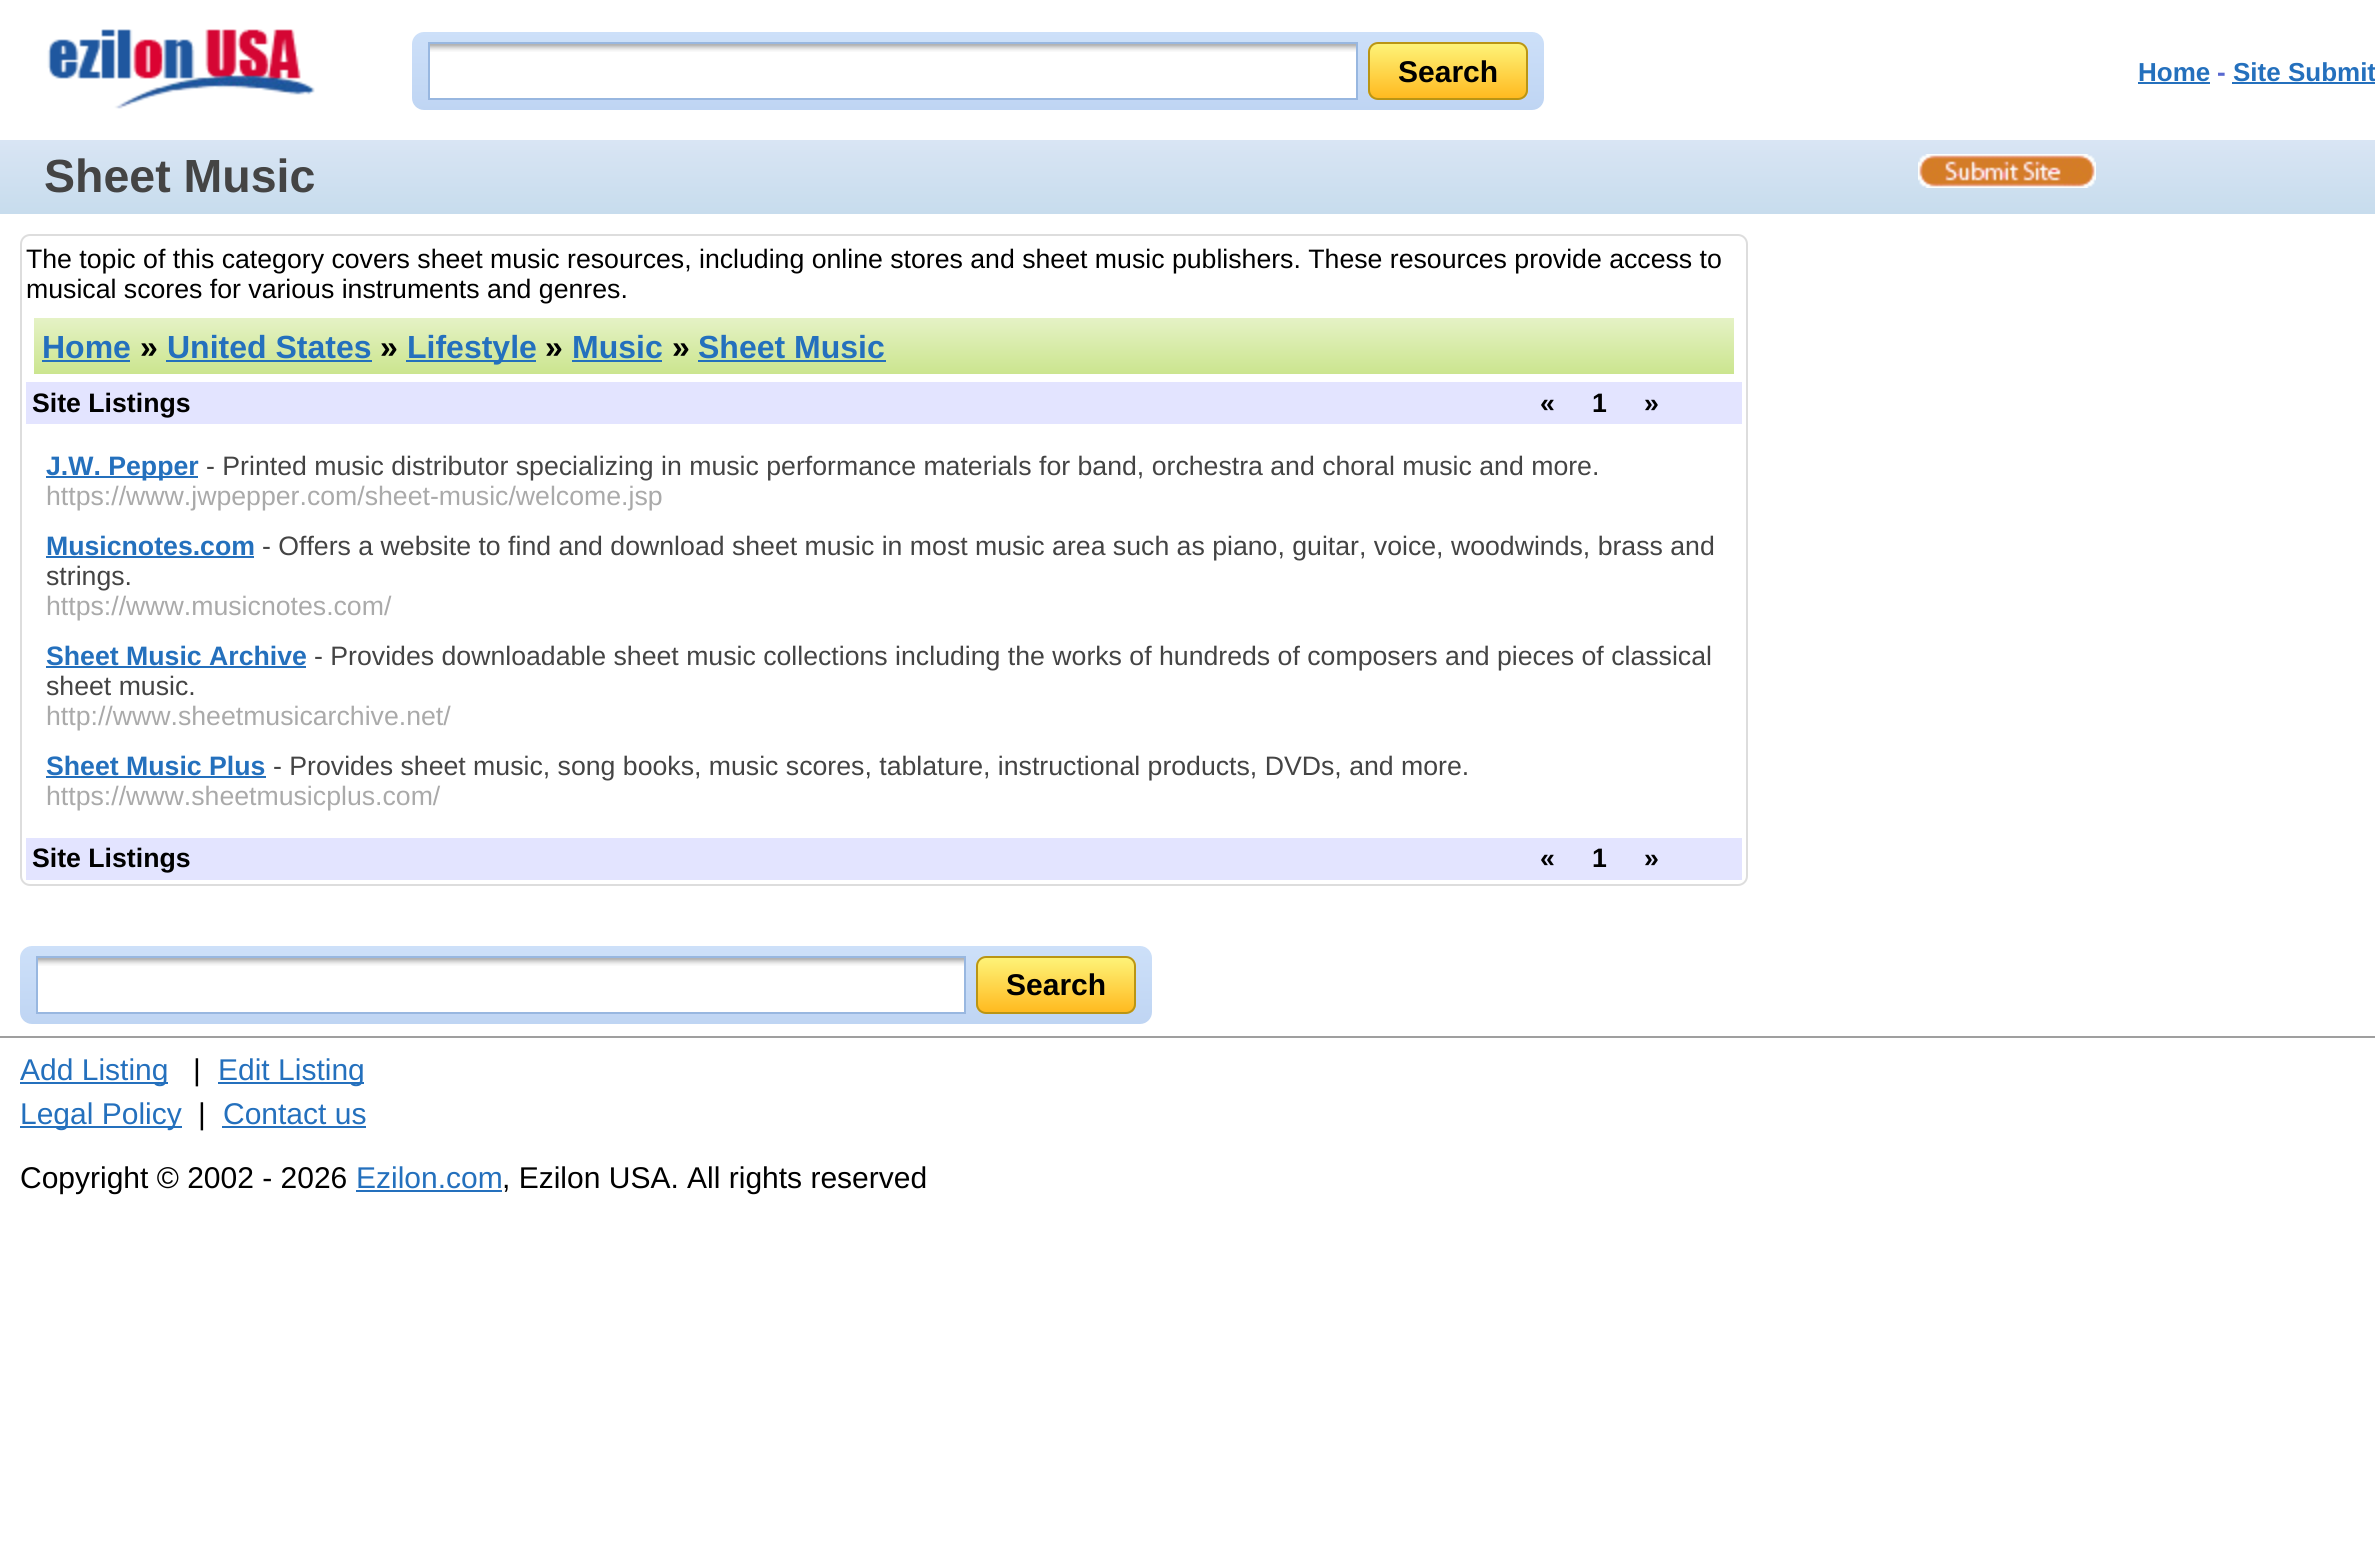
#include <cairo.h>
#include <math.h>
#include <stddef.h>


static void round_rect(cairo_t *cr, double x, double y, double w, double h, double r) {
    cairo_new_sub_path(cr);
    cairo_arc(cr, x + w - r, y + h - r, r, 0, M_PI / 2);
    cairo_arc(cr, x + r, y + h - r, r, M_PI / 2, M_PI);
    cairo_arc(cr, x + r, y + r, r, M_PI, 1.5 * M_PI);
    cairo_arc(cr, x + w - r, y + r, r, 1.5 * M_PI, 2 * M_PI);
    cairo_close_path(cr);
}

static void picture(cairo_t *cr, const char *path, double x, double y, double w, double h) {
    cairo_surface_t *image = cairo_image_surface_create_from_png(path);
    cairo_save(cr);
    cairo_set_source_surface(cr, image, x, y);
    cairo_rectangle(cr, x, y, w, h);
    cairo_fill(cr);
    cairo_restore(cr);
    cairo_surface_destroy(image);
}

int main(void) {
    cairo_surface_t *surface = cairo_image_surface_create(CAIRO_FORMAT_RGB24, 2375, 1558);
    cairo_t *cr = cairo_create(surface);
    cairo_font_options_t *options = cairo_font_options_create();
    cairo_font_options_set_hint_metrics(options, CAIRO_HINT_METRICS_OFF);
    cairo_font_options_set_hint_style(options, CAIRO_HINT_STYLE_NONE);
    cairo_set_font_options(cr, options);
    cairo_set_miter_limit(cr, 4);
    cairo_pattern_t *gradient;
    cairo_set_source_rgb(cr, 1, 1, 1);
    cairo_paint(cr);
    picture(cr, "img1.png", 47, 29, 268, 80);
    gradient = cairo_pattern_create_linear(978, 32, 978, 110);
    cairo_pattern_add_color_stop_rgba(gradient, 0, 0.804, 0.878, 0.976, 1);
    cairo_pattern_add_color_stop_rgba(gradient, 1, 0.749, 0.835, 0.953, 1);
    cairo_set_source(cr, gradient);
    cairo_pattern_destroy(gradient);
    round_rect(cr, 412, 32, 1132, 78, 12);
    cairo_fill(cr);
    cairo_set_source_rgb(cr, 1, 1, 1);
    cairo_rectangle(cr, 430, 52, 926, 46);
    cairo_fill(cr);
    picture(cr, "img2.png", 430, 44, 926, 8);
    cairo_rectangle(cr, 429, 43, 928, 56);
    cairo_set_source_rgb(cr, 0.596, 0.718, 0.878);
    cairo_stroke(cr);
    cairo_save(cr);
    round_rect(cr, 1368, 42, 160, 58, 10);
    cairo_clip(cr);
    gradient = cairo_pattern_create_linear(1448, 44, 1448, 98);
    cairo_pattern_add_color_stop_rgba(gradient, 0, 0.996, 0.953, 0.471, 1);
    cairo_pattern_add_color_stop_rgba(gradient, 1, 1, 0.729, 0.125, 1);
    cairo_set_source(cr, gradient);
    cairo_pattern_destroy(gradient);
    cairo_rectangle(cr, 1368, 44, 160, 54);
    cairo_fill(cr);
    cairo_restore(cr);
    round_rect(cr, 1369, 43, 158, 56, 9);
    cairo_set_source_rgb(cr, 0.729, 0.584, 0.082);
    cairo_stroke(cr);
    cairo_select_font_face(cr, "Liberation Sans", CAIRO_FONT_SLANT_NORMAL, CAIRO_FONT_WEIGHT_BOLD);
    cairo_set_font_size(cr, 30);
    cairo_set_source_rgb(cr, 0, 0, 0);
    cairo_move_to(cr, 1398, 82);
    cairo_show_text(cr, "Search");
    cairo_set_font_size(cr, 26);
    cairo_set_source_rgb(cr, 0.141, 0.439, 0.741);
    cairo_move_to(cr, 2138, 81);
    cairo_show_text(cr, "Home");
    cairo_rectangle(cr, 2138, 82, 72, 2);
    cairo_fill(cr);
    cairo_set_source_rgb(cr, 0.345, 0.408, 0.816);
    cairo_move_to(cr, 2217, 81);
    cairo_show_text(cr, "-");
    cairo_set_source_rgb(cr, 0.141, 0.439, 0.741);
    cairo_move_to(cr, 2233, 81);
    cairo_show_text(cr, "Site Submit");
    cairo_rectangle(cr, 2232, 82, 143, 2);
    cairo_fill(cr);
    gradient = cairo_pattern_create_linear(1188, 140, 1188, 214);
    cairo_pattern_add_color_stop_rgba(gradient, 0, 0.851, 0.898, 0.957, 1);
    cairo_pattern_add_color_stop_rgba(gradient, 1, 0.78, 0.863, 0.929, 1);
    cairo_set_source(cr, gradient);
    cairo_pattern_destroy(gradient);
    cairo_rectangle(cr, 0, 140, 2375, 74);
    cairo_fill(cr);
    cairo_set_font_size(cr, 46.5);
    cairo_set_source_rgb(cr, 0.267, 0.267, 0.267);
    cairo_move_to(cr, 44, 192);
    cairo_show_text(cr, "Sheet Music");
    picture(cr, "img3.png", 1918, 154, 178, 34);
    round_rect(cr, 21, 235, 1726, 650, 9);
    cairo_set_source_rgb(cr, 0.867, 0.867, 0.867);
    cairo_stroke(cr);
    cairo_select_font_face(cr, "Liberation Sans", CAIRO_FONT_SLANT_NORMAL, CAIRO_FONT_WEIGHT_NORMAL);
    cairo_set_font_size(cr, 26.67);
    cairo_set_source_rgb(cr, 0, 0, 0);
    cairo_move_to(cr, 26, 268);
    cairo_show_text(cr, "The topic of this category covers sheet music resources, including online stores and sheet music publishers. These resources provide access to");
    cairo_move_to(cr, 26, 298);
    cairo_show_text(cr, "musical scores for various instruments and genres.");
    gradient = cairo_pattern_create_linear(884, 318, 884, 374);
    cairo_pattern_add_color_stop_rgba(gradient, 0, 0.898, 0.949, 0.776, 1);
    cairo_pattern_add_color_stop_rgba(gradient, 1, 0.796, 0.898, 0.557, 1);
    cairo_set_source(cr, gradient);
    cairo_pattern_destroy(gradient);
    cairo_rectangle(cr, 34, 318, 1700, 56);
    cairo_fill(cr);
    cairo_select_font_face(cr, "Liberation Sans", CAIRO_FONT_SLANT_NORMAL, CAIRO_FONT_WEIGHT_BOLD);
    cairo_set_font_size(cr, 32);
    cairo_set_source_rgb(cr, 0.141, 0.439, 0.741);
    cairo_move_to(cr, 42, 358);
    cairo_show_text(cr, "Home");
    cairo_rectangle(cr, 42, 360, 88, 2);
    cairo_fill(cr);
    cairo_set_source_rgb(cr, 0, 0, 0);
    cairo_move_to(cr, 140, 358);
    cairo_show_text(cr, "»");
    cairo_set_source_rgb(cr, 0.141, 0.439, 0.741);
    cairo_move_to(cr, 167, 358);
    cairo_show_text(cr, "United States");
    cairo_rectangle(cr, 166, 360, 206, 2);
    cairo_fill(cr);
    cairo_set_source_rgb(cr, 0, 0, 0);
    cairo_move_to(cr, 380, 358);
    cairo_show_text(cr, "»");
    cairo_set_source_rgb(cr, 0.141, 0.439, 0.741);
    cairo_rectangle(cr, 406, 360, 130, 2);
    cairo_fill(cr);
    cairo_move_to(cr, 407, 358);
    cairo_show_text(cr, "Lifestyle");
    cairo_set_source_rgb(cr, 0, 0, 0);
    cairo_move_to(cr, 545, 358);
    cairo_show_text(cr, "»");
    cairo_set_source_rgb(cr, 0.141, 0.439, 0.741);
    cairo_move_to(cr, 572, 358);
    cairo_show_text(cr, "Music");
    cairo_rectangle(cr, 572, 360, 90, 2);
    cairo_fill(cr);
    cairo_set_source_rgb(cr, 0, 0, 0);
    cairo_move_to(cr, 672, 358);
    cairo_show_text(cr, "»");
    cairo_set_source_rgb(cr, 0.141, 0.439, 0.741);
    cairo_move_to(cr, 698, 358);
    cairo_show_text(cr, "Sheet Music");
    cairo_rectangle(cr, 698, 360, 188, 2);
    cairo_fill(cr);
    cairo_set_source_rgb(cr, 0.89, 0.894, 1);
    cairo_rectangle(cr, 26, 382, 1716, 42);
    cairo_fill(cr);
    cairo_set_font_size(cr, 26.67);
    cairo_set_source_rgb(cr, 0, 0, 0);
    cairo_move_to(cr, 32, 412);
    cairo_show_text(cr, "Site Listings");
    cairo_move_to(cr, 1540, 412);
    cairo_show_text(cr, "«");
    cairo_move_to(cr, 1592, 412);
    cairo_show_text(cr, "1");
    cairo_move_to(cr, 1644, 412);
    cairo_show_text(cr, "»");
    cairo_set_source_rgb(cr, 0.141, 0.439, 0.741);
    cairo_rectangle(cr, 46, 476, 152, 2);
    cairo_fill(cr);
    cairo_move_to(cr, 46, 475);
    cairo_show_text(cr, "J.W. Pepper");
    cairo_select_font_face(cr, "Liberation Sans", CAIRO_FONT_SLANT_NORMAL, CAIRO_FONT_WEIGHT_NORMAL);
    cairo_set_source_rgb(cr, 0.267, 0.267, 0.267);
    cairo_move_to(cr, 206, 475);
    cairo_show_text(cr, "- Printed music distributor specializing in music performance materials for band, orchestra and choral music and more.");
    cairo_set_source_rgb(cr, 0.667, 0.667, 0.667);
    cairo_move_to(cr, 46, 505);
    cairo_show_text(cr, "https://www.jwpepper.com/sheet-music/welcome.jsp");
    cairo_select_font_face(cr, "Liberation Sans", CAIRO_FONT_SLANT_NORMAL, CAIRO_FONT_WEIGHT_BOLD);
    cairo_set_source_rgb(cr, 0.141, 0.439, 0.741);
    cairo_move_to(cr, 46, 555);
    cairo_show_text(cr, "Musicnotes.com");
    cairo_rectangle(cr, 46, 556, 208, 2);
    cairo_fill(cr);
    cairo_select_font_face(cr, "Liberation Sans", CAIRO_FONT_SLANT_NORMAL, CAIRO_FONT_WEIGHT_NORMAL);
    cairo_set_source_rgb(cr, 0.267, 0.267, 0.267);
    cairo_move_to(cr, 262, 555);
    cairo_show_text(cr, "- Offers a website to find and download sheet music in most music area such as piano, guitar, voice, woodwinds, brass and");
    cairo_move_to(cr, 46, 585);
    cairo_show_text(cr, "strings.");
    cairo_set_source_rgb(cr, 0.667, 0.667, 0.667);
    cairo_move_to(cr, 46, 615);
    cairo_show_text(cr, "https://www.musicnotes.com/");
    cairo_select_font_face(cr, "Liberation Sans", CAIRO_FONT_SLANT_NORMAL, CAIRO_FONT_WEIGHT_BOLD);
    cairo_set_source_rgb(cr, 0.141, 0.439, 0.741);
    cairo_move_to(cr, 46, 665);
    cairo_show_text(cr, "Sheet Music Archive");
    cairo_rectangle(cr, 46, 666, 260, 2);
    cairo_fill(cr);
    cairo_select_font_face(cr, "Liberation Sans", CAIRO_FONT_SLANT_NORMAL, CAIRO_FONT_WEIGHT_NORMAL);
    cairo_set_source_rgb(cr, 0.267, 0.267, 0.267);
    cairo_move_to(cr, 314, 665);
    cairo_show_text(cr, "- Provides downloadable sheet music collections including the works of hundreds of composers and pieces of classical");
    cairo_move_to(cr, 46, 695);
    cairo_show_text(cr, "sheet music.");
    cairo_set_source_rgb(cr, 0.667, 0.667, 0.667);
    cairo_move_to(cr, 46, 725);
    cairo_show_text(cr, "http://www.sheetmusicarchive.net/");
    cairo_select_font_face(cr, "Liberation Sans", CAIRO_FONT_SLANT_NORMAL, CAIRO_FONT_WEIGHT_BOLD);
    cairo_set_source_rgb(cr, 0.141, 0.439, 0.741);
    cairo_move_to(cr, 46, 775);
    cairo_show_text(cr, "Sheet Music Plus");
    cairo_rectangle(cr, 46, 776, 220, 2);
    cairo_fill(cr);
    cairo_select_font_face(cr, "Liberation Sans", CAIRO_FONT_SLANT_NORMAL, CAIRO_FONT_WEIGHT_NORMAL);
    cairo_set_source_rgb(cr, 0.267, 0.267, 0.267);
    cairo_move_to(cr, 273, 775);
    cairo_show_text(cr, "- Provides sheet music, song books, music scores, tablature, instructional products, DVDs, and more.");
    cairo_set_source_rgb(cr, 0.667, 0.667, 0.667);
    cairo_move_to(cr, 46, 805);
    cairo_show_text(cr, "https://www.sheetmusicplus.com/");
    cairo_set_source_rgb(cr, 0.89, 0.894, 1);
    cairo_rectangle(cr, 26, 838, 1716, 42);
    cairo_fill(cr);
    cairo_select_font_face(cr, "Liberation Sans", CAIRO_FONT_SLANT_NORMAL, CAIRO_FONT_WEIGHT_BOLD);
    cairo_set_source_rgb(cr, 0, 0, 0);
    cairo_move_to(cr, 32, 867);
    cairo_show_text(cr, "Site Listings");
    cairo_move_to(cr, 1540, 867);
    cairo_show_text(cr, "«");
    cairo_move_to(cr, 1592, 867);
    cairo_show_text(cr, "1");
    cairo_move_to(cr, 1644, 867);
    cairo_show_text(cr, "»");
    gradient = cairo_pattern_create_linear(586, 946, 586, 1024);
    cairo_pattern_add_color_stop_rgba(gradient, 0, 0.804, 0.878, 0.976, 1);
    cairo_pattern_add_color_stop_rgba(gradient, 1, 0.749, 0.835, 0.953, 1);
    cairo_set_source(cr, gradient);
    cairo_pattern_destroy(gradient);
    round_rect(cr, 20, 946, 1132, 78, 12);
    cairo_fill(cr);
    cairo_set_source_rgb(cr, 1, 1, 1);
    cairo_rectangle(cr, 38, 966, 926, 46);
    cairo_fill(cr);
    picture(cr, "img2.png", 38, 958, 926, 8);
    cairo_rectangle(cr, 37, 957, 928, 56);
    cairo_set_source_rgb(cr, 0.596, 0.718, 0.878);
    cairo_stroke(cr);
    cairo_save(cr);
    round_rect(cr, 976, 956, 160, 58, 10);
    cairo_clip(cr);
    gradient = cairo_pattern_create_linear(1056, 958, 1056, 1012);
    cairo_pattern_add_color_stop_rgba(gradient, 0, 0.996, 0.953, 0.471, 1);
    cairo_pattern_add_color_stop_rgba(gradient, 1, 1, 0.729, 0.125, 1);
    cairo_set_source(cr, gradient);
    cairo_pattern_destroy(gradient);
    cairo_rectangle(cr, 976, 958, 160, 54);
    cairo_fill(cr);
    cairo_restore(cr);
    round_rect(cr, 977, 957, 158, 56, 9);
    cairo_set_source_rgb(cr, 0.729, 0.584, 0.082);
    cairo_stroke(cr);
    cairo_set_font_size(cr, 30);
    cairo_set_source_rgb(cr, 0, 0, 0);
    cairo_move_to(cr, 1006, 995);
    cairo_show_text(cr, "Search");
    cairo_set_source_rgb(cr, 0.624, 0.624, 0.624);
    cairo_rectangle(cr, 0, 1036, 2375, 2);
    cairo_fill(cr);
    cairo_set_source_rgb(cr, 0.141, 0.439, 0.741);
    cairo_rectangle(cr, 20, 1082, 148, 2);
    cairo_fill(cr);
    cairo_select_font_face(cr, "Liberation Sans", CAIRO_FONT_SLANT_NORMAL, CAIRO_FONT_WEIGHT_NORMAL);
    cairo_move_to(cr, 20, 1080);
    cairo_show_text(cr, "Add Listing");
    cairo_set_source_rgb(cr, 0, 0, 0);
    cairo_move_to(cr, 193, 1080);
    cairo_show_text(cr, "|");
    cairo_set_source_rgb(cr, 0.141, 0.439, 0.741);
    cairo_rectangle(cr, 218, 1082, 146, 2);
    cairo_fill(cr);
    cairo_move_to(cr, 218, 1080);
    cairo_show_text(cr, "Edit Listing");
    cairo_rectangle(cr, 20, 1126, 162, 2);
    cairo_fill(cr);
    cairo_move_to(cr, 20, 1124);
    cairo_show_text(cr, "Legal Policy");
    cairo_set_source_rgb(cr, 0, 0, 0);
    cairo_move_to(cr, 198, 1124);
    cairo_show_text(cr, "|");
    cairo_set_source_rgb(cr, 0.141, 0.439, 0.741);
    cairo_move_to(cr, 223, 1124);
    cairo_show_text(cr, "Contact us");
    cairo_rectangle(cr, 222, 1126, 144, 2);
    cairo_fill(cr);
    cairo_set_source_rgb(cr, 0, 0, 0);
    cairo_move_to(cr, 20, 1188);
    cairo_show_text(cr, "Copyright © 2002 - 2026");
    cairo_set_source_rgb(cr, 0.141, 0.439, 0.741);
    cairo_move_to(cr, 356, 1188);
    cairo_show_text(cr, "Ezilon.com");
    cairo_rectangle(cr, 356, 1190, 146, 2);
    cairo_fill(cr);
    cairo_set_source_rgb(cr, 0, 0, 0);
    cairo_move_to(cr, 502, 1188);
    cairo_show_text(cr, ", Ezilon USA. All rights reserved");
    cairo_surface_write_to_png(surface, "page.png");
    cairo_font_options_destroy(options);
    cairo_destroy(cr);
    cairo_surface_destroy(surface);
    return 0;
}
